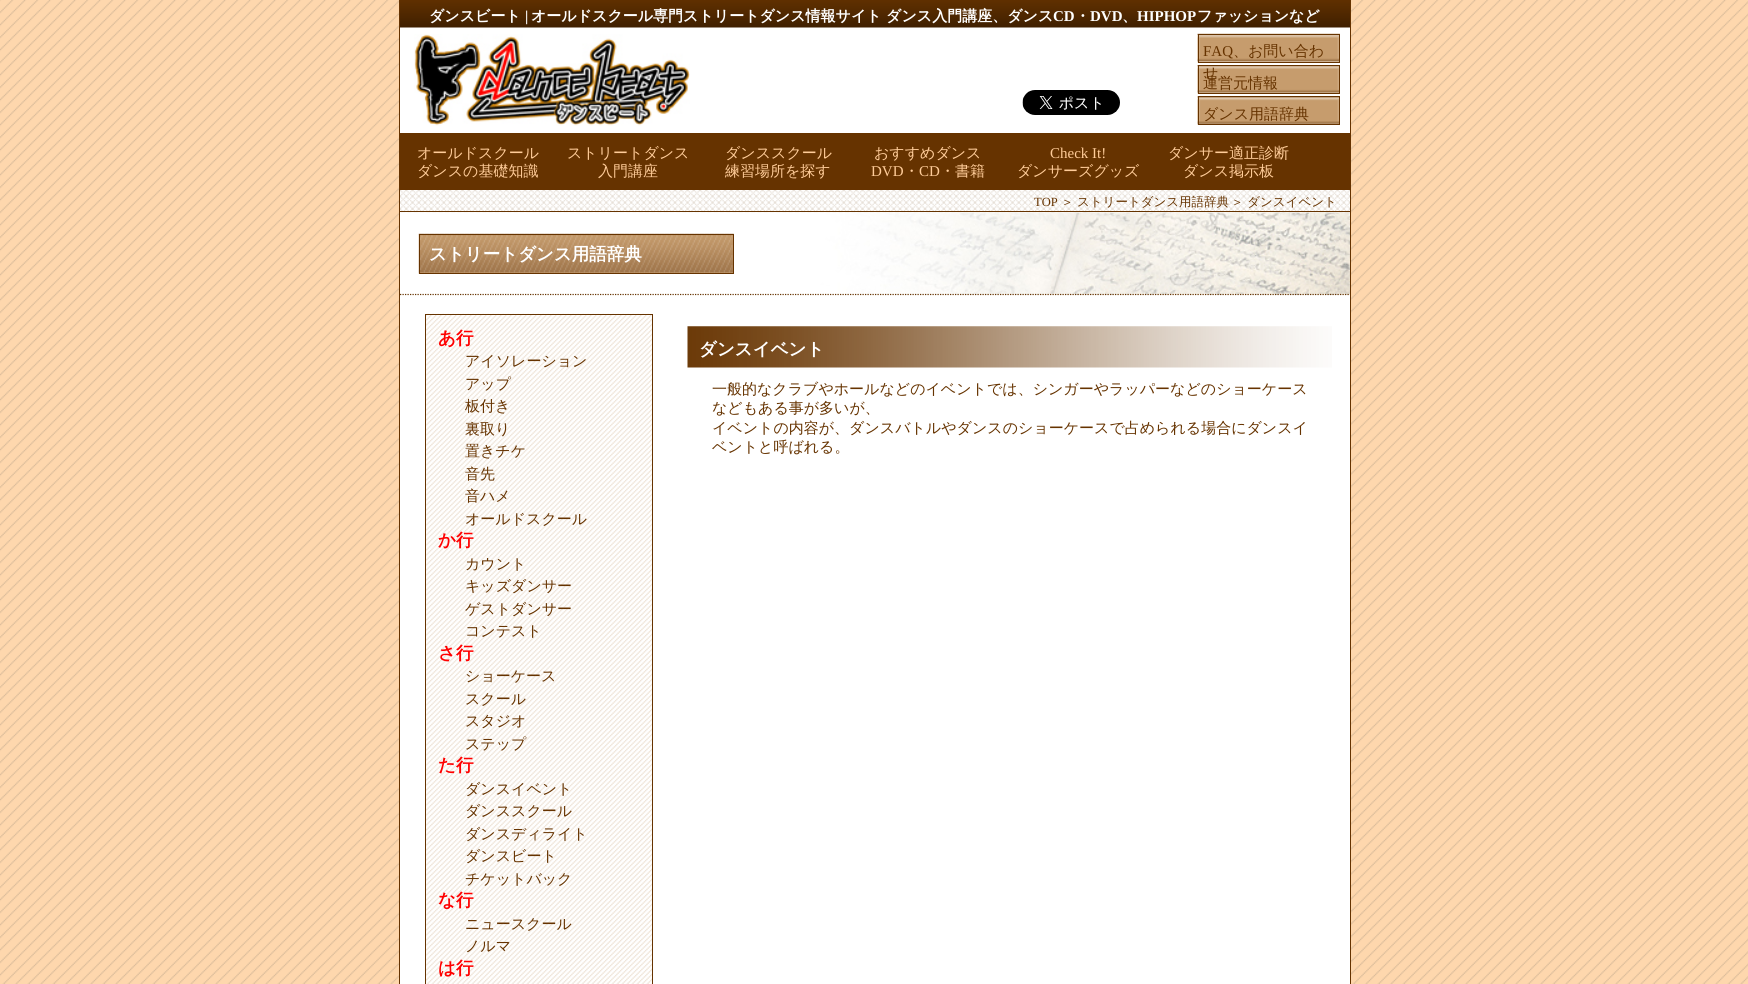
#include <cairo.h>
#include <math.h>
#include <stddef.h>


static void picture(cairo_t *cr, const char *path, double x, double y, double w, double h) {
    cairo_surface_t *image = cairo_image_surface_create_from_png(path);
    cairo_save(cr);
    cairo_set_source_surface(cr, image, x, y);
    cairo_rectangle(cr, x, y, w, h);
    cairo_fill(cr);
    cairo_restore(cr);
    cairo_surface_destroy(image);
}

int main(void) {
    cairo_surface_t *surface = cairo_image_surface_create(CAIRO_FORMAT_RGB24, 1748, 984);
    cairo_t *cr = cairo_create(surface);
    cairo_font_options_t *options = cairo_font_options_create();
    cairo_font_options_set_hint_metrics(options, CAIRO_HINT_METRICS_OFF);
    cairo_font_options_set_hint_style(options, CAIRO_HINT_STYLE_NONE);
    cairo_set_font_options(cr, options);
    cairo_set_miter_limit(cr, 4);
    cairo_set_source_rgb(cr, 1, 1, 1);
    cairo_paint(cr);
    picture(cr, "img1.png", 0, 0, 1748, 984);
    cairo_set_source_rgb(cr, 1, 1, 1);
    cairo_rectangle(cr, 400, 27, 950, 957);
    cairo_fill(cr);
    cairo_set_source_rgb(cr, 0.4, 0.2, 0);
    cairo_rectangle(cr, 1350, 0, 1, 984);
    cairo_fill(cr);
    cairo_rectangle(cr, 399, 0, 1, 984);
    cairo_fill(cr);
    picture(cr, "img2.png", 400, 0, 950, 28);
    cairo_select_font_face(cr, "WenQuanYi Zen Hei", CAIRO_FONT_SLANT_NORMAL, CAIRO_FONT_WEIGHT_BOLD);
    cairo_set_font_size(cr, 15);
    cairo_set_source_rgb(cr, 1, 1, 1);
    cairo_move_to(cr, 429, 21);
    cairo_show_text(cr, "ダンスビート");
    cairo_select_font_face(cr, "Liberation Serif", CAIRO_FONT_SLANT_NORMAL, CAIRO_FONT_WEIGHT_BOLD);
    cairo_move_to(cr, 525, 21);
    cairo_show_text(cr, "|");
    cairo_select_font_face(cr, "WenQuanYi Zen Hei", CAIRO_FONT_SLANT_NORMAL, CAIRO_FONT_WEIGHT_BOLD);
    cairo_move_to(cr, 531, 21);
    cairo_show_text(cr, "オールドスクール専門ストリートダンス情報サイト ダンス入門講座、ダンス");
    cairo_select_font_face(cr, "Liberation Serif", CAIRO_FONT_SLANT_NORMAL, CAIRO_FONT_WEIGHT_BOLD);
    cairo_move_to(cr, 1053, 21);
    cairo_show_text(cr, "CD");
    cairo_select_font_face(cr, "WenQuanYi Zen Hei", CAIRO_FONT_SLANT_NORMAL, CAIRO_FONT_WEIGHT_BOLD);
    cairo_move_to(cr, 1075, 21);
    cairo_show_text(cr, "・");
    cairo_select_font_face(cr, "Liberation Serif", CAIRO_FONT_SLANT_NORMAL, CAIRO_FONT_WEIGHT_BOLD);
    cairo_move_to(cr, 1090, 21);
    cairo_show_text(cr, "DVD");
    cairo_move_to(cr, 1137, 21);
    cairo_show_text(cr, "HIPHOP");
    cairo_select_font_face(cr, "WenQuanYi Zen Hei", CAIRO_FONT_SLANT_NORMAL, CAIRO_FONT_WEIGHT_BOLD);
    cairo_move_to(cr, 1197, 21);
    cairo_show_text(cr, "ファッションなど");
    cairo_move_to(cr, 1122, 21);
    cairo_show_text(cr, "、");
    picture(cr, "img3.png", 414, 34, 276, 92);
    picture(cr, "img4.png", 1022, 90, 98, 25);
    picture(cr, "img5.png", 1197, 33, 143, 30);
    cairo_rectangle(cr, 1198.5, 34.5, 141, 28);
    cairo_set_source_rgb(cr, 0.4, 0.2, 0);
    cairo_set_line_width(cr, 1);
    cairo_stroke(cr);
    cairo_select_font_face(cr, "Liberation Serif", CAIRO_FONT_SLANT_NORMAL, CAIRO_FONT_WEIGHT_NORMAL);
    cairo_move_to(cr, 1203, 56);
    cairo_show_text(cr, "FAQ");
    cairo_select_font_face(cr, "WenQuanYi Zen Hei Medium", CAIRO_FONT_SLANT_NORMAL, CAIRO_FONT_WEIGHT_NORMAL);
    cairo_move_to(cr, 1233, 56);
    cairo_show_text(cr, "、お問い合わ");
    picture(cr, "img6.png", 1197, 65, 142, 29);
    cairo_rectangle(cr, 1198.5, 65.5, 141, 28);
    cairo_stroke(cr);
    cairo_move_to(cr, 1203, 78);
    cairo_show_text(cr, "せ");
    cairo_move_to(cr, 1203, 88);
    cairo_show_text(cr, "運営元情報");
    picture(cr, "img7.png", 1197, 96, 142, 29);
    cairo_rectangle(cr, 1198.5, 96.5, 141, 28);
    cairo_stroke(cr);
    cairo_move_to(cr, 1203, 119);
    cairo_show_text(cr, "ダンス用語辞典");
    cairo_rectangle(cr, 400, 133, 950, 57);
    cairo_fill(cr);
    cairo_set_source_rgb(cr, 1, 0.8, 0.6);
    cairo_move_to(cr, 417, 158);
    cairo_show_text(cr, "オールドスクール");
    cairo_move_to(cr, 417, 176);
    cairo_show_text(cr, "ダンスの基礎知識");
    cairo_move_to(cr, 567, 158);
    cairo_show_text(cr, "ストリートダンス");
    cairo_move_to(cr, 598, 176);
    cairo_show_text(cr, "入門講座");
    cairo_move_to(cr, 725, 158);
    cairo_show_text(cr, "ダンススクール");
    cairo_move_to(cr, 725, 176);
    cairo_show_text(cr, "練習場所を探す");
    cairo_move_to(cr, 874, 158);
    cairo_show_text(cr, "おすすめダンス");
    cairo_select_font_face(cr, "Liberation Serif", CAIRO_FONT_SLANT_NORMAL, CAIRO_FONT_WEIGHT_NORMAL);
    cairo_move_to(cr, 871, 176);
    cairo_show_text(cr, "DVD");
    cairo_select_font_face(cr, "WenQuanYi Zen Hei Medium", CAIRO_FONT_SLANT_NORMAL, CAIRO_FONT_WEIGHT_NORMAL);
    cairo_move_to(cr, 904, 176);
    cairo_show_text(cr, "・");
    cairo_select_font_face(cr, "Liberation Serif", CAIRO_FONT_SLANT_NORMAL, CAIRO_FONT_WEIGHT_NORMAL);
    cairo_move_to(cr, 919, 176);
    cairo_show_text(cr, "CD");
    cairo_select_font_face(cr, "WenQuanYi Zen Hei Medium", CAIRO_FONT_SLANT_NORMAL, CAIRO_FONT_WEIGHT_NORMAL);
    cairo_move_to(cr, 940, 176);
    cairo_show_text(cr, "・書籍");
    cairo_select_font_face(cr, "Liberation Serif", CAIRO_FONT_SLANT_NORMAL, CAIRO_FONT_WEIGHT_NORMAL);
    cairo_move_to(cr, 1050, 158);
    cairo_show_text(cr, "Check It!");
    cairo_select_font_face(cr, "WenQuanYi Zen Hei Medium", CAIRO_FONT_SLANT_NORMAL, CAIRO_FONT_WEIGHT_NORMAL);
    cairo_move_to(cr, 1017, 176);
    cairo_show_text(cr, "ダンサーズグッズ");
    cairo_move_to(cr, 1168, 158);
    cairo_show_text(cr, "ダンサー適正診断");
    cairo_move_to(cr, 1183, 176);
    cairo_show_text(cr, "ダンス掲示板");
    picture(cr, "img8.png", 400, 190, 950, 23);
    cairo_set_source_rgb(cr, 0.4, 0.2, 0);
    cairo_rectangle(cr, 400, 211, 950, 1);
    cairo_fill(cr);
    cairo_select_font_face(cr, "Liberation Serif", CAIRO_FONT_SLANT_NORMAL, CAIRO_FONT_WEIGHT_NORMAL);
    cairo_set_font_size(cr, 12.5);
    cairo_move_to(cr, 1034, 206);
    cairo_show_text(cr, "TOP");
    cairo_select_font_face(cr, "WenQuanYi Zen Hei Medium", CAIRO_FONT_SLANT_NORMAL, CAIRO_FONT_WEIGHT_NORMAL);
    cairo_move_to(cr, 1061, 206);
    cairo_show_text(cr, "＞");
    cairo_move_to(cr, 1077, 206);
    cairo_show_text(cr, "ストリートダンス用語辞典");
    cairo_move_to(cr, 1231, 206);
    cairo_show_text(cr, "＞ ダンスイベント");
    picture(cr, "img9.png", 402, 212, 948, 83);
    cairo_new_path(cr);
    cairo_move_to(cr, 400, 294.5);
    cairo_line_to(cr, 1350, 294.5);
    cairo_set_line_width(cr, 1.2);
    cairo_set_dash(cr, (double[]){1.25, 1.25}, 2, 0);
    cairo_stroke(cr);
    picture(cr, "img10.png", 418, 233, 316, 41);
    cairo_rectangle(cr, 419.5, 234.5, 314, 39);
    cairo_set_line_width(cr, 1);
    cairo_set_dash(cr, NULL, 0, 0);
    cairo_stroke(cr);
    cairo_select_font_face(cr, "WenQuanYi Zen Hei", CAIRO_FONT_SLANT_NORMAL, CAIRO_FONT_WEIGHT_BOLD);
    cairo_set_font_size(cr, 17.5);
    cairo_set_source_rgb(cr, 1, 1, 1);
    cairo_move_to(cr, 429, 260);
    cairo_show_text(cr, "ストリートダンス用語辞典");
    picture(cr, "img11.png", 425, 313, 228, 671);
    cairo_rectangle(cr, 425.5, 314.5, 227, 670);
    cairo_set_source_rgb(cr, 0.4, 0.2, 0);
    cairo_stroke(cr);
    cairo_set_source_rgb(cr, 1, 0, 0);
    cairo_move_to(cr, 438, 344);
    cairo_show_text(cr, "あ行");
    cairo_select_font_face(cr, "WenQuanYi Zen Hei Medium", CAIRO_FONT_SLANT_NORMAL, CAIRO_FONT_WEIGHT_NORMAL);
    cairo_set_font_size(cr, 15);
    cairo_set_source_rgb(cr, 0.4, 0.2, 0);
    cairo_move_to(cr, 465, 366);
    cairo_show_text(cr, "アイソレーション");
    cairo_move_to(cr, 465, 389);
    cairo_show_text(cr, "アップ");
    cairo_move_to(cr, 465, 411);
    cairo_show_text(cr, "板付き");
    cairo_move_to(cr, 465, 434);
    cairo_show_text(cr, "裏取り");
    cairo_move_to(cr, 465, 456);
    cairo_show_text(cr, "置きチケ");
    cairo_move_to(cr, 465, 479);
    cairo_show_text(cr, "音先");
    cairo_move_to(cr, 465, 501);
    cairo_show_text(cr, "音ハメ");
    cairo_move_to(cr, 465, 524);
    cairo_show_text(cr, "オールドスクール");
    cairo_select_font_face(cr, "WenQuanYi Zen Hei", CAIRO_FONT_SLANT_NORMAL, CAIRO_FONT_WEIGHT_BOLD);
    cairo_set_font_size(cr, 17.5);
    cairo_set_source_rgb(cr, 1, 0, 0);
    cairo_move_to(cr, 438, 546);
    cairo_show_text(cr, "か行");
    cairo_select_font_face(cr, "WenQuanYi Zen Hei Medium", CAIRO_FONT_SLANT_NORMAL, CAIRO_FONT_WEIGHT_NORMAL);
    cairo_set_font_size(cr, 15);
    cairo_set_source_rgb(cr, 0.4, 0.2, 0);
    cairo_move_to(cr, 465, 569);
    cairo_show_text(cr, "カウント");
    cairo_move_to(cr, 465, 591);
    cairo_show_text(cr, "キッズダンサー");
    cairo_move_to(cr, 465, 614);
    cairo_show_text(cr, "ゲストダンサー");
    cairo_move_to(cr, 465, 636);
    cairo_show_text(cr, "コンテスト");
    cairo_select_font_face(cr, "WenQuanYi Zen Hei", CAIRO_FONT_SLANT_NORMAL, CAIRO_FONT_WEIGHT_BOLD);
    cairo_set_font_size(cr, 17.5);
    cairo_set_source_rgb(cr, 1, 0, 0);
    cairo_move_to(cr, 438, 659);
    cairo_show_text(cr, "さ行");
    cairo_select_font_face(cr, "WenQuanYi Zen Hei Medium", CAIRO_FONT_SLANT_NORMAL, CAIRO_FONT_WEIGHT_NORMAL);
    cairo_set_font_size(cr, 15);
    cairo_set_source_rgb(cr, 0.4, 0.2, 0);
    cairo_move_to(cr, 465, 681);
    cairo_show_text(cr, "ショーケース");
    cairo_move_to(cr, 465, 704);
    cairo_show_text(cr, "スクール");
    cairo_move_to(cr, 465, 726);
    cairo_show_text(cr, "スタジオ");
    cairo_move_to(cr, 465, 749);
    cairo_show_text(cr, "ステップ");
    cairo_select_font_face(cr, "WenQuanYi Zen Hei", CAIRO_FONT_SLANT_NORMAL, CAIRO_FONT_WEIGHT_BOLD);
    cairo_set_font_size(cr, 17.5);
    cairo_set_source_rgb(cr, 1, 0, 0);
    cairo_move_to(cr, 438, 771);
    cairo_show_text(cr, "た行");
    cairo_select_font_face(cr, "WenQuanYi Zen Hei Medium", CAIRO_FONT_SLANT_NORMAL, CAIRO_FONT_WEIGHT_NORMAL);
    cairo_set_font_size(cr, 15);
    cairo_set_source_rgb(cr, 0.4, 0.2, 0);
    cairo_move_to(cr, 465, 794);
    cairo_show_text(cr, "ダンスイベント");
    cairo_move_to(cr, 465, 816);
    cairo_show_text(cr, "ダンススクール");
    cairo_move_to(cr, 465, 839);
    cairo_show_text(cr, "ダンスディライト");
    cairo_move_to(cr, 465, 861);
    cairo_show_text(cr, "ダンスビート");
    cairo_move_to(cr, 465, 884);
    cairo_show_text(cr, "チケットバック");
    cairo_select_font_face(cr, "WenQuanYi Zen Hei", CAIRO_FONT_SLANT_NORMAL, CAIRO_FONT_WEIGHT_BOLD);
    cairo_set_font_size(cr, 17.5);
    cairo_set_source_rgb(cr, 1, 0, 0);
    cairo_move_to(cr, 438, 906);
    cairo_show_text(cr, "な行");
    cairo_select_font_face(cr, "WenQuanYi Zen Hei Medium", CAIRO_FONT_SLANT_NORMAL, CAIRO_FONT_WEIGHT_NORMAL);
    cairo_set_font_size(cr, 15);
    cairo_set_source_rgb(cr, 0.4, 0.2, 0);
    cairo_move_to(cr, 465, 929);
    cairo_show_text(cr, "ニュースクール");
    cairo_move_to(cr, 465, 951);
    cairo_show_text(cr, "ノルマ");
    cairo_select_font_face(cr, "WenQuanYi Zen Hei", CAIRO_FONT_SLANT_NORMAL, CAIRO_FONT_WEIGHT_BOLD);
    cairo_set_font_size(cr, 17.5);
    cairo_set_source_rgb(cr, 1, 0, 0);
    cairo_move_to(cr, 438, 974);
    cairo_show_text(cr, "は行");
    picture(cr, "img12.png", 687, 326, 645, 42);
    cairo_set_source_rgb(cr, 1, 1, 1);
    cairo_move_to(cr, 699, 355);
    cairo_show_text(cr, "ダンスイベント");
    cairo_select_font_face(cr, "WenQuanYi Zen Hei Medium", CAIRO_FONT_SLANT_NORMAL, CAIRO_FONT_WEIGHT_NORMAL);
    cairo_set_font_size(cr, 15);
    cairo_set_source_rgb(cr, 0.4, 0.2, 0);
    cairo_move_to(cr, 712, 394);
    cairo_show_text(cr, "一般的なクラブやホールなどのイベントでは、シンガーやラッパーなどのショーケース");
    cairo_move_to(cr, 712, 413);
    cairo_show_text(cr, "などもある事が多いが、");
    cairo_move_to(cr, 712, 433);
    cairo_show_text(cr, "イベントの内容が、ダンスバトルやダンスのショーケースで占められる場合にダンスイ");
    cairo_move_to(cr, 712, 452);
    cairo_show_text(cr, "ベントと呼ばれる。");
    cairo_surface_write_to_png(surface, "page.png");
    cairo_font_options_destroy(options);
    cairo_destroy(cr);
    cairo_surface_destroy(surface);
    return 0;
}
